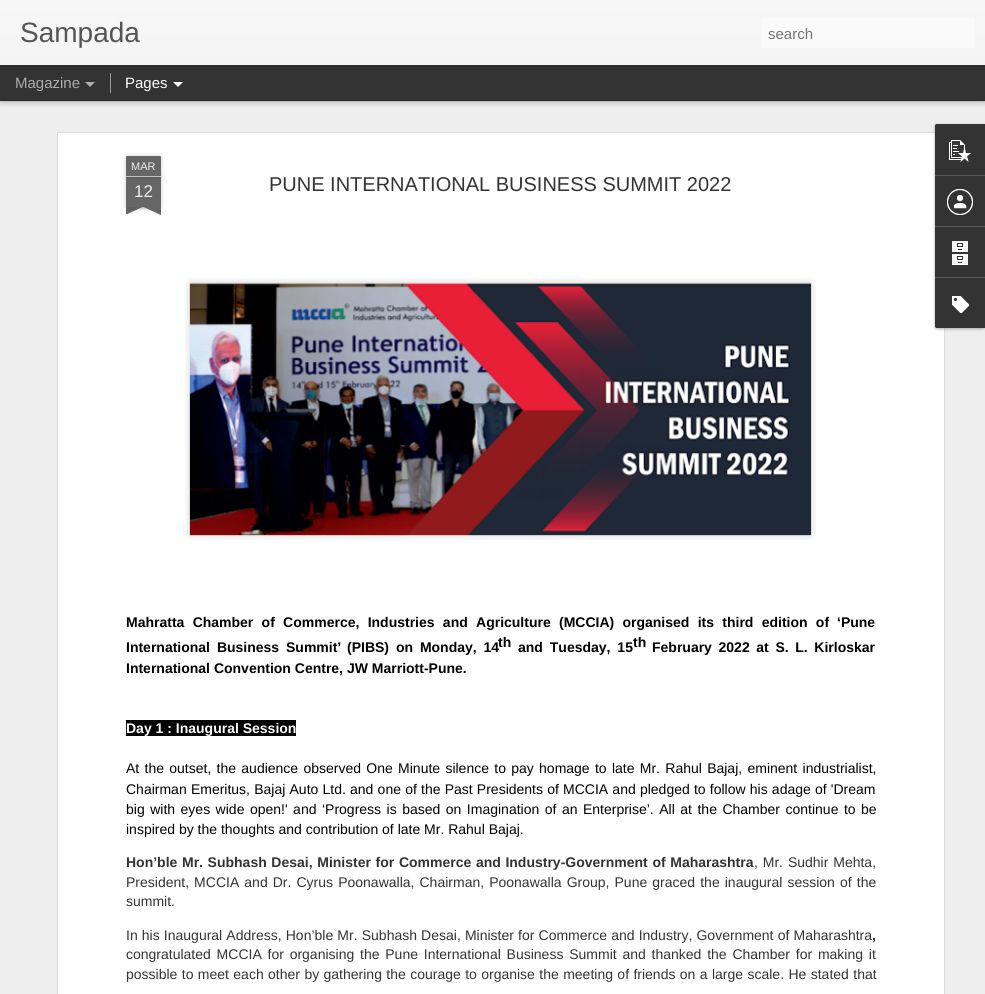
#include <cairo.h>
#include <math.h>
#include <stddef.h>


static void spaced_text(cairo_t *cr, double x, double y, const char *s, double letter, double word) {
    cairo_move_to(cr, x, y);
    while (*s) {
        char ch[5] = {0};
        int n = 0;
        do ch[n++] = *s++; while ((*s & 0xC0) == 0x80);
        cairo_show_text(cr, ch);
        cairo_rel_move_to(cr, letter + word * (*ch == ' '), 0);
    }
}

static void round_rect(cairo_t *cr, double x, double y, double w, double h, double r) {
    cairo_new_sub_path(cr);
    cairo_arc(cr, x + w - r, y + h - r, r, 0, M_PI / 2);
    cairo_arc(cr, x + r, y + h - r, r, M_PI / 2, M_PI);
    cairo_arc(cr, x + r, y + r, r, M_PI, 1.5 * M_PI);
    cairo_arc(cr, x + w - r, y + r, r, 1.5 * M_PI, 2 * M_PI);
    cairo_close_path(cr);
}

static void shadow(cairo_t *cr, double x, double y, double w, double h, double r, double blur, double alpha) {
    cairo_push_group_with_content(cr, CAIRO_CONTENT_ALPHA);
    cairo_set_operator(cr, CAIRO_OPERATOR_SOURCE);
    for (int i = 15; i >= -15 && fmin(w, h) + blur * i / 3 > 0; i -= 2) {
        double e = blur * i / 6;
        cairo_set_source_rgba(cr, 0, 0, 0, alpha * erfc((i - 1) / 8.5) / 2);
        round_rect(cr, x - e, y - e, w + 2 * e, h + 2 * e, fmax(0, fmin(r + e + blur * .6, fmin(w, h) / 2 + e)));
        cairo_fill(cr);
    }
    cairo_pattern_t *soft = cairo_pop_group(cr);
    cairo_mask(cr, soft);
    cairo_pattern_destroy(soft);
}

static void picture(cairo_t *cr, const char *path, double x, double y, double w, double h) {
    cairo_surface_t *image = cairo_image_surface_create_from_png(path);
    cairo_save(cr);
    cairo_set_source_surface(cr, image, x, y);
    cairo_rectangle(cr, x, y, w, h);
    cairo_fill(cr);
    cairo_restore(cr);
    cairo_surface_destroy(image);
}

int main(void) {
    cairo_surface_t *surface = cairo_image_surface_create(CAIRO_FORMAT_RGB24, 985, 994);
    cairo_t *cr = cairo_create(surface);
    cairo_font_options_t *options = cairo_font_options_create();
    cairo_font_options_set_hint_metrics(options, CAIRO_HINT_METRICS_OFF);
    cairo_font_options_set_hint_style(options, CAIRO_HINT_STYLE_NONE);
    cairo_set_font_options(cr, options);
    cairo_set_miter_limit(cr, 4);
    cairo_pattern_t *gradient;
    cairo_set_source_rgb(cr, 0.2, 0.2, 0.2);
    cairo_paint(cr);
    cairo_set_source_rgb(cr, 0.933, 0.933, 0.933);
    cairo_rectangle(cr, 0, 101, 985, 893);
    cairo_fill(cr);
    cairo_set_source_rgb(cr, 0, 0, 0);
    shadow(cr, 0, 65, 985, 35, 0, 4, 0.5);
    cairo_set_source_rgb(cr, 0.2, 0.2, 0.2);
    cairo_rectangle(cr, 0, 65, 985, 35);
    cairo_fill(cr);
    cairo_set_source_rgb(cr, 0.6, 0.6, 0.6);
    cairo_rectangle(cr, 110, 73, 1, 20);
    cairo_fill(cr);
    cairo_set_source_rgb(cr, 0, 0, 0);
    shadow(cr, 0, 0, 985, 65, 0, 2.5, 0.3);
    gradient = cairo_pattern_create_linear(0, 0, 0, 65);
    cairo_pattern_add_color_stop_rgba(gradient, 0, 0.969, 0.969, 0.969, 1);
    cairo_pattern_add_color_stop_rgba(gradient, 1, 0.957, 0.957, 0.957, 1);
    cairo_set_source(cr, gradient);
    cairo_pattern_destroy(gradient);
    cairo_rectangle(cr, 0, 0, 985, 65);
    cairo_fill(cr);
    cairo_select_font_face(cr, "Liberation Sans", CAIRO_FONT_SLANT_NORMAL, CAIRO_FONT_WEIGHT_NORMAL);
    cairo_set_font_size(cr, 28);
    cairo_set_source_rgb(cr, 0.333, 0.333, 0.333);
    cairo_move_to(cr, 20, 42);
    cairo_show_text(cr, "Sampada");
    cairo_set_source_rgb(cr, 0.98, 0.98, 0.98);
    round_rect(cr, 761, 18, 214, 30, 3);
    cairo_fill(cr);
    cairo_set_font_size(cr, 15);
    cairo_set_source_rgb(cr, 0.459, 0.459, 0.459);
    cairo_move_to(cr, 768, 39);
    cairo_show_text(cr, "search");
    cairo_set_source_rgb(cr, 0.678, 0.678, 0.678);
    cairo_move_to(cr, 15, 88);
    cairo_show_text(cr, "Magazine");
    cairo_new_path(cr);
    cairo_move_to(cr, 85, 82);
    cairo_line_to(cr, 95, 82);
    cairo_line_to(cr, 90, 87);
    cairo_close_path(cr);
    cairo_fill(cr);
    cairo_set_source_rgb(cr, 1, 1, 1);
    cairo_move_to(cr, 125, 88);
    cairo_show_text(cr, "Pages");
    cairo_new_path(cr);
    cairo_move_to(cr, 173, 82);
    cairo_line_to(cr, 183, 82);
    cairo_line_to(cr, 178, 87);
    cairo_close_path(cr);
    cairo_fill(cr);
    cairo_rectangle(cr, 56, 131, 890, 863);
    cairo_fill(cr);
    picture(cr, "img1.png", 56, 131, 890, 863);
    cairo_set_source_rgb(cr, 0, 0, 0);
    shadow(cr, 126, 177, 35, 30, 0, 2.5, 0.2);
    cairo_set_source_rgb(cr, 0.4, 0.4, 0.4);
    cairo_rectangle(cr, 126, 177, 35, 30);
    cairo_fill(cr);
    cairo_set_source_rgb(cr, 0, 0, 0);
    shadow(cr, 126, 156, 35, 21, 1, 2.5, 0.2);
    cairo_set_source_rgb(cr, 0.4, 0.4, 0.4);
    cairo_new_path(cr);
    cairo_move_to(cr, 127, 156);
    cairo_line_to(cr, 160, 156);
    cairo_curve_to(cr, 160.5, 156, 161, 156.5, 161, 157);
    cairo_line_to(cr, 161, 177);
    cairo_line_to(cr, 126, 177);
    cairo_line_to(cr, 126, 157);
    cairo_curve_to(cr, 126, 156.5, 126.5, 156, 127, 156);
    cairo_close_path(cr);
    cairo_fill(cr);
    cairo_set_source_rgb(cr, 0.761, 0.761, 0.761);
    cairo_rectangle(cr, 126, 176, 35, 1);
    cairo_fill(cr);
    cairo_set_font_size(cr, 11);
    cairo_set_source_rgb(cr, 0.933, 0.933, 0.933);
    cairo_move_to(cr, 131, 170);
    cairo_show_text(cr, "MAR");
    cairo_set_font_size(cr, 17);
    cairo_move_to(cr, 134, 197);
    cairo_show_text(cr, "12");
    cairo_save(cr);
    cairo_rectangle(cr, 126, 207, 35, 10);
    cairo_clip(cr);
    cairo_set_source_rgb(cr, 0, 0, 0);
    shadow(cr, 117, 197, 50, 10, 0, 2.5, 0.2);
    cairo_restore(cr);
    cairo_save(cr);
    cairo_rectangle(cr, 126, 207, 35, 10);
    cairo_clip(cr);
    cairo_set_source_rgb(cr, 0.4, 0.4, 0.4);
    cairo_new_path(cr);
    cairo_move_to(cr, 117, 208);
    cairo_line_to(cr, 162, 187);
    cairo_line_to(cr, 166, 196);
    cairo_line_to(cr, 121, 217);
    cairo_close_path(cr);
    cairo_fill(cr);
    cairo_restore(cr);
    cairo_save(cr);
    cairo_rectangle(cr, 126, 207, 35, 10);
    cairo_clip(cr);
    cairo_set_source_rgb(cr, 0, 0, 0);
    shadow(cr, 120, 197, 50, 10, 0, 2.5, 0.2);
    cairo_restore(cr);
    cairo_save(cr);
    cairo_rectangle(cr, 126, 207, 35, 10);
    cairo_clip(cr);
    cairo_set_source_rgb(cr, 0.4, 0.4, 0.4);
    cairo_new_path(cr);
    cairo_move_to(cr, 124, 187);
    cairo_line_to(cr, 169, 208);
    cairo_line_to(cr, 165, 217);
    cairo_line_to(cr, 120, 196);
    cairo_close_path(cr);
    cairo_fill(cr);
    cairo_restore(cr);
    cairo_set_font_size(cr, 20);
    cairo_set_source_rgb(cr, 0.2, 0.2, 0.2);
    cairo_move_to(cr, 269, 191);
    cairo_show_text(cr, "PUNE INTERNATIONAL BUSINESS SUMMIT 2022");
    picture(cr, "img2.png", 185, 278, 631, 262);
    picture(cr, "img3.png", 189, 282, 623, 254);
    cairo_select_font_face(cr, "Liberation Sans", CAIRO_FONT_SLANT_NORMAL, CAIRO_FONT_WEIGHT_BOLD);
    cairo_set_font_size(cr, 14);
    cairo_set_source_rgb(cr, 0, 0, 0);
    spaced_text(cr, 126, 627, "Mahratta Chamber of Commerce, Industries and Agriculture (MCCIA) organised its third edition of", 0, 4.4);
    cairo_move_to(cr, 837, 627);
    cairo_show_text(cr, "‘Pune");
    spaced_text(cr, 126, 652, "International Business Summit’", 0, 3);
    spaced_text(cr, 347, 652, "(PIBS) on Monday, 14", 0, 3);
    cairo_move_to(cr, 498, 647);
    cairo_show_text(cr, "th");
    spaced_text(cr, 518, 652, "and Tuesday, 15", 0, 3);
    cairo_move_to(cr, 633, 647);
    cairo_show_text(cr, "th");
    spaced_text(cr, 652, 652, "February 2022 at S. L. Kirloskar", 0, 2.75);
    cairo_move_to(cr, 126, 673);
    cairo_show_text(cr, "International Convention Centre, JW Marriott-Pune.");
    cairo_rectangle(cr, 126, 720, 170, 16);
    cairo_fill(cr);
    cairo_set_source_rgb(cr, 1, 1, 1);
    cairo_move_to(cr, 126, 733);
    cairo_show_text(cr, "Day 1 : Inaugural Session");
    cairo_select_font_face(cr, "Liberation Sans", CAIRO_FONT_SLANT_NORMAL, CAIRO_FONT_WEIGHT_NORMAL);
    cairo_set_source_rgb(cr, 0, 0, 0);
    spaced_text(cr, 126, 773, "At the outset, the audience observed One Minute silence to pay homage to late Mr. Rahul Bajaj, eminent industrialist,", 0, 1.4);
    spaced_text(cr, 126, 794, "Chairman Emeritus, Bajaj Auto Ltd. and one of the Past Presidents of MCCIA and pledged to follow his adage of 'Dream", 0, 0.3);
    spaced_text(cr, 126, 814, "big with eyes wide open!' and ‘Progress is based on Imagination of an Enterprise’. All at the Chamber continue to be", 0, 1.6);
    cairo_move_to(cr, 126, 834);
    cairo_show_text(cr, "inspired by the thoughts and contribution of late Mr. Rahul Bajaj.");
    cairo_select_font_face(cr, "Liberation Sans", CAIRO_FONT_SLANT_NORMAL, CAIRO_FONT_WEIGHT_BOLD);
    cairo_set_source_rgb(cr, 0.2, 0.2, 0.2);
    spaced_text(cr, 126, 867, "Hon’ble Mr. Subhash Desai, Minister for Commerce and Industry-Government of Maharashtra", 0, 0.75);
    cairo_select_font_face(cr, "Liberation Sans", CAIRO_FONT_SLANT_NORMAL, CAIRO_FONT_WEIGHT_NORMAL);
    spaced_text(cr, 754, 867, ", Mr. Sudhir Mehta,", 0, 1);
    spaced_text(cr, 126, 887, "President, MCCIA and Dr. Cyrus Poonawalla, Chairman, Poonawalla Group, Pune graced the inaugural session of the", 0, 1.2);
    cairo_move_to(cr, 126, 906);
    cairo_show_text(cr, "summit.");
    spaced_text(cr, 126, 940, "In his Inaugural Address, Hon’ble Mr. Subhash Desai, Minister for Commerce and Industry, Government of Maharashtra", 0, 0.25);
    cairo_select_font_face(cr, "Liberation Sans", CAIRO_FONT_SLANT_NORMAL, CAIRO_FONT_WEIGHT_BOLD);
    cairo_move_to(cr, 872, 940);
    cairo_show_text(cr, ",");
    cairo_select_font_face(cr, "Liberation Sans", CAIRO_FONT_SLANT_NORMAL, CAIRO_FONT_WEIGHT_NORMAL);
    spaced_text(cr, 126, 959, "congratulated MCCIA for organising the Pune International Business Summit and thanked the Chamber for making it", 0, 1.9);
    spaced_text(cr, 126, 979, "possible to meet each other by gathering the courage to organise the meeting of friends on a large scale. He stated that", 0, 0.5);
    cairo_set_source_rgb(cr, 0, 0, 0);
    shadow(cr, 935, 125, 50, 204, 2, 1.5, 0.3);
    cairo_set_source_rgb(cr, 0.2, 0.2, 0.2);
    cairo_new_path(cr);
    cairo_move_to(cr, 937, 124);
    cairo_line_to(cr, 985, 124);
    cairo_line_to(cr, 985, 328);
    cairo_line_to(cr, 937, 328);
    cairo_curve_to(cr, 936, 328, 935, 327, 935, 326);
    cairo_line_to(cr, 935, 126);
    cairo_curve_to(cr, 935, 125, 936, 124, 937, 124);
    cairo_close_path(cr);
    cairo_fill(cr);
    cairo_new_path(cr);
    cairo_move_to(cr, 937, 124);
    cairo_line_to(cr, 985, 124);
    cairo_line_to(cr, 985, 175);
    cairo_line_to(cr, 935, 175);
    cairo_line_to(cr, 935, 126);
    cairo_curve_to(cr, 935, 125, 936, 124, 937, 124);
    cairo_close_path(cr);
    cairo_fill(cr);
    picture(cr, "img4.png", 949, 140, 22, 22);
    cairo_set_source_rgb(cr, 0.345, 0.345, 0.345);
    cairo_rectangle(cr, 935, 175, 50, 1);
    cairo_fill(cr);
    picture(cr, "img5.png", 947, 189, 26, 26);
    cairo_rectangle(cr, 935, 226, 50, 1);
    cairo_fill(cr);
    picture(cr, "img6.png", 952, 241, 16, 24);
    cairo_set_source_rgb(cr, 0.2, 0.2, 0.2);
    cairo_new_path(cr);
    cairo_move_to(cr, 935, 277);
    cairo_line_to(cr, 985, 277);
    cairo_line_to(cr, 985, 328);
    cairo_line_to(cr, 937, 328);
    cairo_curve_to(cr, 936, 328, 935, 327, 935, 326);
    cairo_close_path(cr);
    cairo_fill(cr);
    cairo_set_source_rgb(cr, 0.345, 0.345, 0.345);
    cairo_rectangle(cr, 935, 277, 50, 1);
    cairo_fill(cr);
    picture(cr, "img7.png", 952, 296, 17, 17);
    cairo_surface_write_to_png(surface, "page.png");
    cairo_font_options_destroy(options);
    cairo_destroy(cr);
    cairo_surface_destroy(surface);
    return 0;
}
